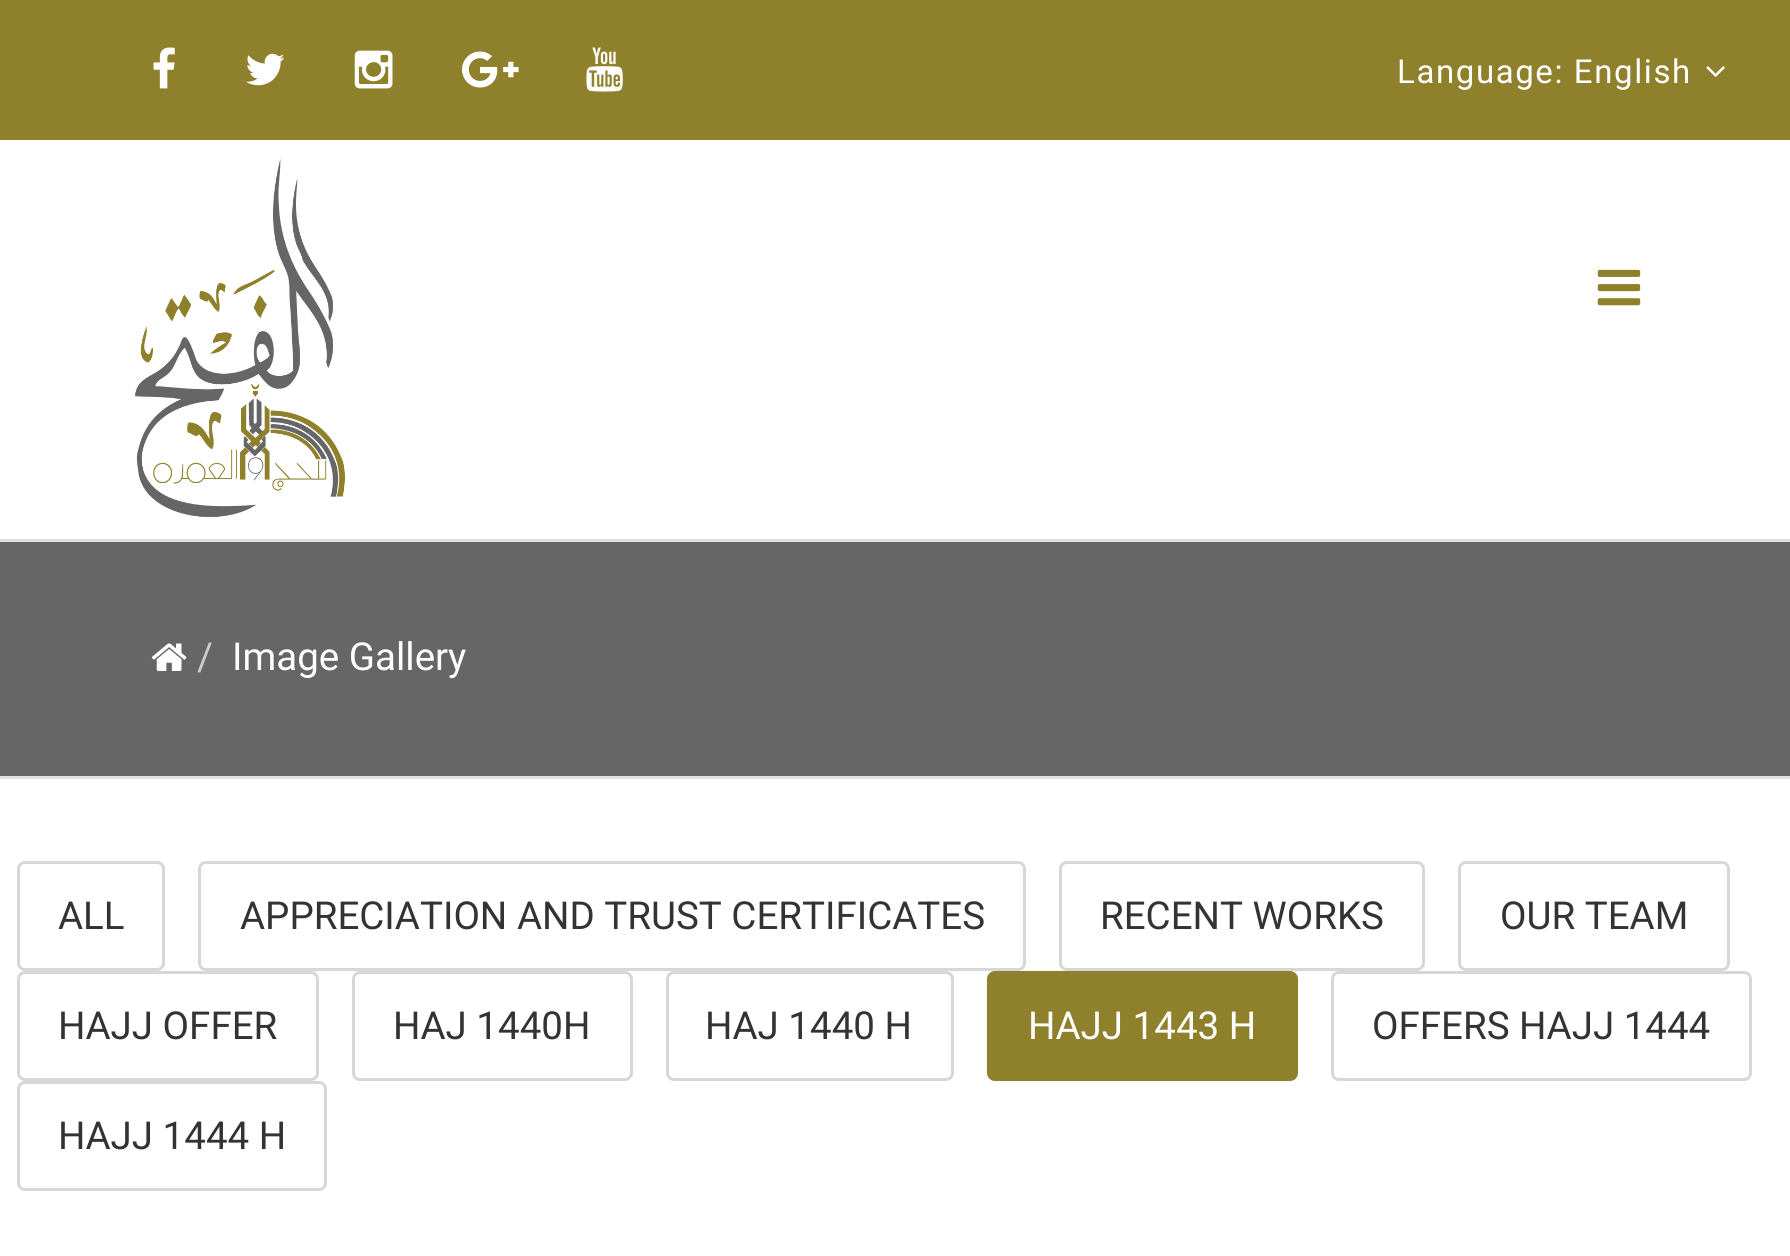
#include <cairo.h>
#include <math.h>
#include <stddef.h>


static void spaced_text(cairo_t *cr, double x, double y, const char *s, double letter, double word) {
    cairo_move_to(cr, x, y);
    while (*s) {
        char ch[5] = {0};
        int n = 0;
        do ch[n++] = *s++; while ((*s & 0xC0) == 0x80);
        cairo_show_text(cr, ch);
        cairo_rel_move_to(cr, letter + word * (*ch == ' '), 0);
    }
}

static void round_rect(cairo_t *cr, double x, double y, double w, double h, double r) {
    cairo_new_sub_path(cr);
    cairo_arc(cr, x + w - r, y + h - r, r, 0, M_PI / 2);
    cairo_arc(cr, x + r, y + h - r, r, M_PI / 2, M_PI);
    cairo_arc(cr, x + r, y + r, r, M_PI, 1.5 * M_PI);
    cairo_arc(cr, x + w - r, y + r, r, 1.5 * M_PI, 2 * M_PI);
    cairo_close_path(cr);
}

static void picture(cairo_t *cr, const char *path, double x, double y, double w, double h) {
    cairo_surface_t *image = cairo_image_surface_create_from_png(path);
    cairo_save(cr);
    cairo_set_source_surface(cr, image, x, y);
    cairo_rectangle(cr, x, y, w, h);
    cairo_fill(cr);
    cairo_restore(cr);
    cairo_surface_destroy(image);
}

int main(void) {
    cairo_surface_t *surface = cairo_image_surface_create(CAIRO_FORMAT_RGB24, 1790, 1256);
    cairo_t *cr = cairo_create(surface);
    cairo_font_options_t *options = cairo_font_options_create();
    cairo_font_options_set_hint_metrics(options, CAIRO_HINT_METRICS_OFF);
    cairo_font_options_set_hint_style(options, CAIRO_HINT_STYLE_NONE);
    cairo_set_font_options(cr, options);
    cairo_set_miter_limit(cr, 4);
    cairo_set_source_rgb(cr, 1, 1, 1);
    cairo_paint(cr);
    cairo_set_source_rgb(cr, 0.561, 0.502, 0.169);
    cairo_rectangle(cr, 0, 0, 1790, 140);
    cairo_fill(cr);
    picture(cr, "img1.png", 153, 47, 22, 42);
    picture(cr, "img2.png", 246, 53, 39, 33);
    picture(cr, "img3.png", 354, 50, 39, 39);
    picture(cr, "img4.png", 462, 51, 57, 37);
    picture(cr, "img5.png", 586, 47, 37, 45);
    cairo_select_font_face(cr, "Roboto", CAIRO_FONT_SLANT_NORMAL, CAIRO_FONT_WEIGHT_NORMAL);
    cairo_set_font_size(cr, 33);
    cairo_set_source_rgb(cr, 1, 1, 1);
    spaced_text(cr, 1397, 83, "Language: English", 1.6, 0);
    picture(cr, "img6.png", 1706, 66, 19, 11);
    picture(cr, "img7.png", 135, 159, 210, 358);
    picture(cr, "img8.png", 1597, 269, 44, 37);
    cairo_set_source_rgb(cr, 0.4, 0.4, 0.4);
    cairo_rectangle(cr, 0, 542, 1790, 234);
    cairo_fill(cr);
    cairo_set_source_rgb(cr, 0.882, 0.882, 0.882);
    cairo_rectangle(cr, 0, 539, 1790, 3);
    cairo_fill(cr);
    cairo_rectangle(cr, 0, 776, 1790, 3);
    cairo_fill(cr);
    picture(cr, "img9.png", 151, 643, 36, 28);
    cairo_set_font_size(cr, 38.5);
    cairo_set_source_rgb(cr, 0.8, 0.8, 0.8);
    cairo_move_to(cr, 197, 670);
    cairo_show_text(cr, "/");
    cairo_set_source_rgb(cr, 1, 1, 1);
    cairo_move_to(cr, 232, 670);
    cairo_show_text(cr, "Image Gallery");
    round_rect(cr, 18.5, 862.5, 145, 107, 6.5);
    cairo_set_source_rgb(cr, 0.843, 0.843, 0.843);
    cairo_set_line_width(cr, 3);
    cairo_stroke(cr);
    cairo_set_source_rgb(cr, 0.2, 0.2, 0.2);
    cairo_move_to(cr, 58, 929);
    cairo_show_text(cr, "ALL");
    round_rect(cr, 199.5, 862.5, 825, 107, 6.5);
    cairo_set_source_rgb(cr, 0.843, 0.843, 0.843);
    cairo_stroke(cr);
    cairo_set_source_rgb(cr, 0.2, 0.2, 0.2);
    cairo_move_to(cr, 240, 929);
    cairo_show_text(cr, "APPRECIATION AND TRUST CERTIFICATES");
    round_rect(cr, 1060.5, 862.5, 363, 107, 6.5);
    cairo_set_source_rgb(cr, 0.843, 0.843, 0.843);
    cairo_stroke(cr);
    cairo_set_source_rgb(cr, 0.2, 0.2, 0.2);
    cairo_move_to(cr, 1100, 929);
    cairo_show_text(cr, "RECENT WORKS");
    round_rect(cr, 1459.5, 862.5, 269, 107, 6.5);
    cairo_set_source_rgb(cr, 0.843, 0.843, 0.843);
    cairo_stroke(cr);
    cairo_set_source_rgb(cr, 0.2, 0.2, 0.2);
    cairo_move_to(cr, 1500, 929);
    cairo_show_text(cr, "OUR TEAM");
    round_rect(cr, 18.5, 972.5, 299, 107, 6.5);
    cairo_set_source_rgb(cr, 0.843, 0.843, 0.843);
    cairo_stroke(cr);
    cairo_set_source_rgb(cr, 0.2, 0.2, 0.2);
    cairo_move_to(cr, 58, 1039);
    cairo_show_text(cr, "HAJJ OFFER");
    round_rect(cr, 353.5, 972.5, 278, 107, 6.5);
    cairo_set_source_rgb(cr, 0.843, 0.843, 0.843);
    cairo_stroke(cr);
    cairo_set_source_rgb(cr, 0.2, 0.2, 0.2);
    cairo_move_to(cr, 393, 1039);
    cairo_show_text(cr, "HAJ 1440H");
    round_rect(cr, 667.5, 972.5, 285, 107, 6.5);
    cairo_set_source_rgb(cr, 0.843, 0.843, 0.843);
    cairo_stroke(cr);
    cairo_set_source_rgb(cr, 0.2, 0.2, 0.2);
    cairo_move_to(cr, 705, 1039);
    cairo_show_text(cr, "HAJ 1440 H");
    cairo_set_source_rgb(cr, 0.561, 0.502, 0.169);
    round_rect(cr, 988.5, 972.5, 308, 107, 6.5);
    cairo_fill_preserve(cr);
    cairo_stroke(cr);
    cairo_set_source_rgb(cr, 1, 1, 1);
    cairo_move_to(cr, 1028, 1039);
    cairo_show_text(cr, "HAJJ 1443 H");
    round_rect(cr, 1332.5, 972.5, 418, 107, 6.5);
    cairo_set_source_rgb(cr, 0.843, 0.843, 0.843);
    cairo_stroke(cr);
    cairo_set_source_rgb(cr, 0.2, 0.2, 0.2);
    cairo_move_to(cr, 1372, 1039);
    cairo_show_text(cr, "OFFERS HAJJ 1444");
    round_rect(cr, 18.5, 1082.5, 307, 107, 6.5);
    cairo_set_source_rgb(cr, 0.843, 0.843, 0.843);
    cairo_stroke(cr);
    cairo_set_source_rgb(cr, 0.2, 0.2, 0.2);
    cairo_move_to(cr, 58, 1149);
    cairo_show_text(cr, "HAJJ 1444 H");
    cairo_surface_write_to_png(surface, "page.png");
    cairo_font_options_destroy(options);
    cairo_destroy(cr);
    cairo_surface_destroy(surface);
    return 0;
}
